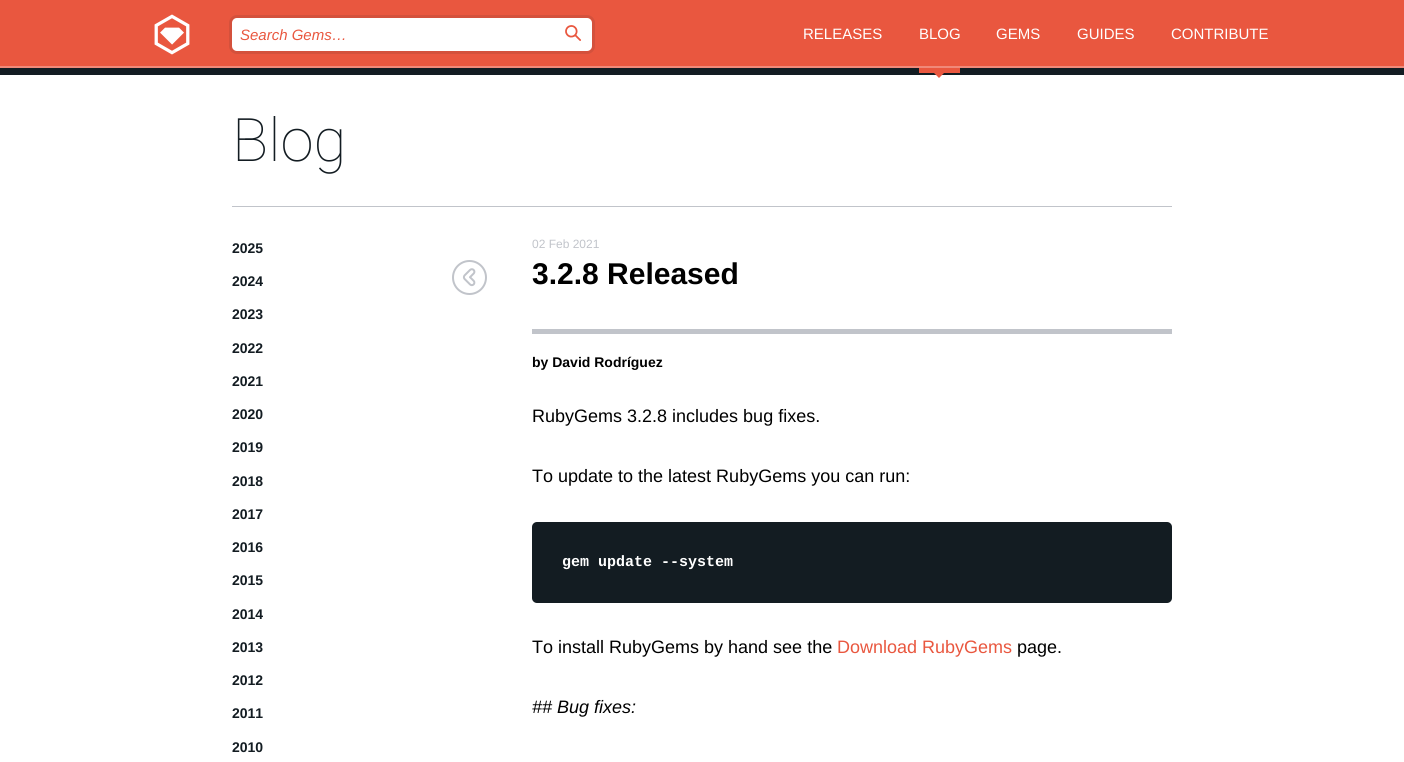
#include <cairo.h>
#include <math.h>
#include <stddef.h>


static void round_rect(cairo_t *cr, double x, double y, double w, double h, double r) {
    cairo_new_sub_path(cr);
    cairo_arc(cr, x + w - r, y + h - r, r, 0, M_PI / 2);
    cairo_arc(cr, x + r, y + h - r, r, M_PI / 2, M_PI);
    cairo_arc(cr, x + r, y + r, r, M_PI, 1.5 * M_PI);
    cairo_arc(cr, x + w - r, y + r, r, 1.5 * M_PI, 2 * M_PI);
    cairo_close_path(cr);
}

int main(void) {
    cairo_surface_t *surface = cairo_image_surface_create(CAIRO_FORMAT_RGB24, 1404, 762);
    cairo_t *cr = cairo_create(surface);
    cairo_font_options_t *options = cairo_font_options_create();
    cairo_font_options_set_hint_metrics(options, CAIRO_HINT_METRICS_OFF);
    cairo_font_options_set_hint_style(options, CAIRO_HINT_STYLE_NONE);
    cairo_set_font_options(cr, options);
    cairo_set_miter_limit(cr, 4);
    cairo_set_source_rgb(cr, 0.914, 0.341, 0.247);
    cairo_paint(cr);
    cairo_set_source_rgb(cr, 0.941, 0.537, 0.475);
    cairo_rectangle(cr, 0, 66, 1404, 2);
    cairo_fill(cr);
    cairo_set_source_rgb(cr, 0.078, 0.11, 0.133);
    cairo_rectangle(cr, 0, 68, 1404, 7);
    cairo_fill(cr);
    cairo_select_font_face(cr, "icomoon", CAIRO_FONT_SLANT_NORMAL, CAIRO_FONT_WEIGHT_NORMAL);
    cairo_set_font_size(cr, 40);
    cairo_set_source_rgb(cr, 1, 1, 1);
    cairo_move_to(cr, 152, 52);
    cairo_show_text(cr, "⬢");
    cairo_move_to(cr, 152, 52);
    cairo_show_text(cr, "⬡");
    round_rect(cr, 230.5, 16.5, 363, 36, 6.5);
    cairo_set_source_rgb(cr, 0.831, 0.318, 0.235);
    cairo_set_line_width(cr, 3);
    cairo_stroke(cr);
    cairo_set_source_rgb(cr, 1, 1, 1);
    round_rect(cr, 232, 18, 360, 33, 5);
    cairo_fill(cr);
    cairo_select_font_face(cr, "Liberation Sans", CAIRO_FONT_SLANT_ITALIC, CAIRO_FONT_WEIGHT_NORMAL);
    cairo_set_font_size(cr, 15);
    cairo_set_source_rgb(cr, 0.914, 0.341, 0.247);
    cairo_move_to(cr, 240, 40);
    cairo_show_text(cr, "Search Gems…");
    cairo_select_font_face(cr, "icomoon", CAIRO_FONT_SLANT_NORMAL, CAIRO_FONT_WEIGHT_NORMAL);
    cairo_set_font_size(cr, 16);
    cairo_move_to(cr, 565, 40);
    cairo_show_text(cr, "⌕");
    cairo_select_font_face(cr, "Liberation Sans", CAIRO_FONT_SLANT_NORMAL, CAIRO_FONT_WEIGHT_NORMAL);
    cairo_set_font_size(cr, 15);
    cairo_set_source_rgb(cr, 1, 1, 1);
    cairo_move_to(cr, 803, 39);
    cairo_show_text(cr, "RELEASES");
    cairo_set_source_rgb(cr, 0.914, 0.341, 0.247);
    cairo_rectangle(cr, 919, 68, 41, 5);
    cairo_fill(cr);
    cairo_set_source_rgb(cr, 1, 1, 1);
    cairo_move_to(cr, 919, 39);
    cairo_show_text(cr, "BLOG");
    cairo_rectangle(cr, 0, 75, 1404, 687);
    cairo_fill(cr);
    cairo_set_source_rgb(cr, 0.914, 0.341, 0.247);
    cairo_new_path(cr);
    cairo_move_to(cr, 934, 73);
    cairo_line_to(cr, 944, 73);
    cairo_line_to(cr, 939, 78);
    cairo_close_path(cr);
    cairo_fill(cr);
    cairo_set_source_rgb(cr, 1, 1, 1);
    cairo_move_to(cr, 996, 39);
    cairo_show_text(cr, "GEMS");
    cairo_move_to(cr, 1077, 39);
    cairo_show_text(cr, "GUIDES");
    cairo_move_to(cr, 1171, 39);
    cairo_show_text(cr, "CONTRIBUTE");
    cairo_set_source_rgb(cr, 0.757, 0.769, 0.792);
    cairo_rectangle(cr, 232, 206, 940, 1);
    cairo_fill(cr);
    cairo_select_font_face(cr, "Roboto Thin", CAIRO_FONT_SLANT_NORMAL, CAIRO_FONT_WEIGHT_NORMAL);
    cairo_set_font_size(cr, 60);
    cairo_set_source_rgb(cr, 0.078, 0.11, 0.133);
    cairo_move_to(cr, 232, 161);
    cairo_show_text(cr, "Blog");
    cairo_select_font_face(cr, "Liberation Sans", CAIRO_FONT_SLANT_NORMAL, CAIRO_FONT_WEIGHT_BOLD);
    cairo_set_font_size(cr, 14);
    cairo_move_to(cr, 232, 253);
    cairo_show_text(cr, "2025");
    cairo_move_to(cr, 232, 286);
    cairo_show_text(cr, "2024");
    cairo_move_to(cr, 232, 319);
    cairo_show_text(cr, "2023");
    cairo_move_to(cr, 232, 353);
    cairo_show_text(cr, "2022");
    cairo_move_to(cr, 232, 386);
    cairo_show_text(cr, "2021");
    cairo_move_to(cr, 232, 419);
    cairo_show_text(cr, "2020");
    cairo_move_to(cr, 232, 452);
    cairo_show_text(cr, "2019");
    cairo_move_to(cr, 232, 486);
    cairo_show_text(cr, "2018");
    cairo_move_to(cr, 232, 519);
    cairo_show_text(cr, "2017");
    cairo_move_to(cr, 232, 552);
    cairo_show_text(cr, "2016");
    cairo_move_to(cr, 232, 585);
    cairo_show_text(cr, "2015");
    cairo_move_to(cr, 232, 619);
    cairo_show_text(cr, "2014");
    cairo_move_to(cr, 232, 652);
    cairo_show_text(cr, "2013");
    cairo_move_to(cr, 232, 685);
    cairo_show_text(cr, "2012");
    cairo_move_to(cr, 232, 718);
    cairo_show_text(cr, "2011");
    cairo_move_to(cr, 232, 752);
    cairo_show_text(cr, "2010");
    cairo_select_font_face(cr, "Liberation Sans", CAIRO_FONT_SLANT_NORMAL, CAIRO_FONT_WEIGHT_NORMAL);
    cairo_set_font_size(cr, 12);
    cairo_set_source_rgb(cr, 0.757, 0.769, 0.792);
    cairo_move_to(cr, 532, 248);
    cairo_show_text(cr, "02 Feb 2021");
    cairo_new_path(cr);
    cairo_arc(cr, 469.5, 277.5, 16.5, 0, 2 * M_PI);
    cairo_set_line_width(cr, 2);
    cairo_stroke(cr);
    cairo_select_font_face(cr, "icomoon", CAIRO_FONT_SLANT_NORMAL, CAIRO_FONT_WEIGHT_NORMAL);
    cairo_set_font_size(cr, 18);
    cairo_move_to(cr, 460, 285);
    cairo_show_text(cr, "<");
    cairo_rectangle(cr, 532, 329, 640, 5);
    cairo_fill(cr);
    cairo_select_font_face(cr, "Liberation Sans", CAIRO_FONT_SLANT_NORMAL, CAIRO_FONT_WEIGHT_BOLD);
    cairo_set_font_size(cr, 30);
    cairo_set_source_rgb(cr, 0, 0, 0);
    cairo_move_to(cr, 532, 284);
    cairo_show_text(cr, "3.2.8 Released");
    cairo_set_font_size(cr, 14);
    cairo_move_to(cr, 532, 367);
    cairo_show_text(cr, "by David Rodríguez");
    cairo_select_font_face(cr, "Liberation Sans", CAIRO_FONT_SLANT_NORMAL, CAIRO_FONT_WEIGHT_NORMAL);
    cairo_set_font_size(cr, 18);
    cairo_move_to(cr, 532, 422);
    cairo_show_text(cr, "RubyGems 3.2.8 includes bug fixes.");
    cairo_move_to(cr, 532, 482);
    cairo_show_text(cr, "To update to the latest RubyGems you can run:");
    cairo_set_source_rgb(cr, 0.078, 0.11, 0.133);
    round_rect(cr, 532, 522, 640, 81, 5);
    cairo_fill(cr);
    cairo_select_font_face(cr, "Liberation Mono", CAIRO_FONT_SLANT_NORMAL, CAIRO_FONT_WEIGHT_BOLD);
    cairo_set_font_size(cr, 15);
    cairo_set_source_rgb(cr, 1, 1, 1);
    cairo_move_to(cr, 562, 566);
    cairo_show_text(cr, "gem update --system");
    cairo_select_font_face(cr, "Liberation Sans", CAIRO_FONT_SLANT_NORMAL, CAIRO_FONT_WEIGHT_NORMAL);
    cairo_set_font_size(cr, 18);
    cairo_set_source_rgb(cr, 0, 0, 0);
    cairo_move_to(cr, 532, 653);
    cairo_show_text(cr, "To install RubyGems by hand see the");
    cairo_set_source_rgb(cr, 0.914, 0.341, 0.247);
    cairo_move_to(cr, 837, 653);
    cairo_show_text(cr, "Download RubyGems");
    cairo_set_source_rgb(cr, 0, 0, 0);
    cairo_move_to(cr, 1017, 653);
    cairo_show_text(cr, "page.");
    cairo_select_font_face(cr, "Liberation Sans", CAIRO_FONT_SLANT_ITALIC, CAIRO_FONT_WEIGHT_NORMAL);
    cairo_move_to(cr, 532, 713);
    cairo_show_text(cr, "## Bug fixes:");
    cairo_surface_write_to_png(surface, "page.png");
    cairo_font_options_destroy(options);
    cairo_destroy(cr);
    cairo_surface_destroy(surface);
    return 0;
}
